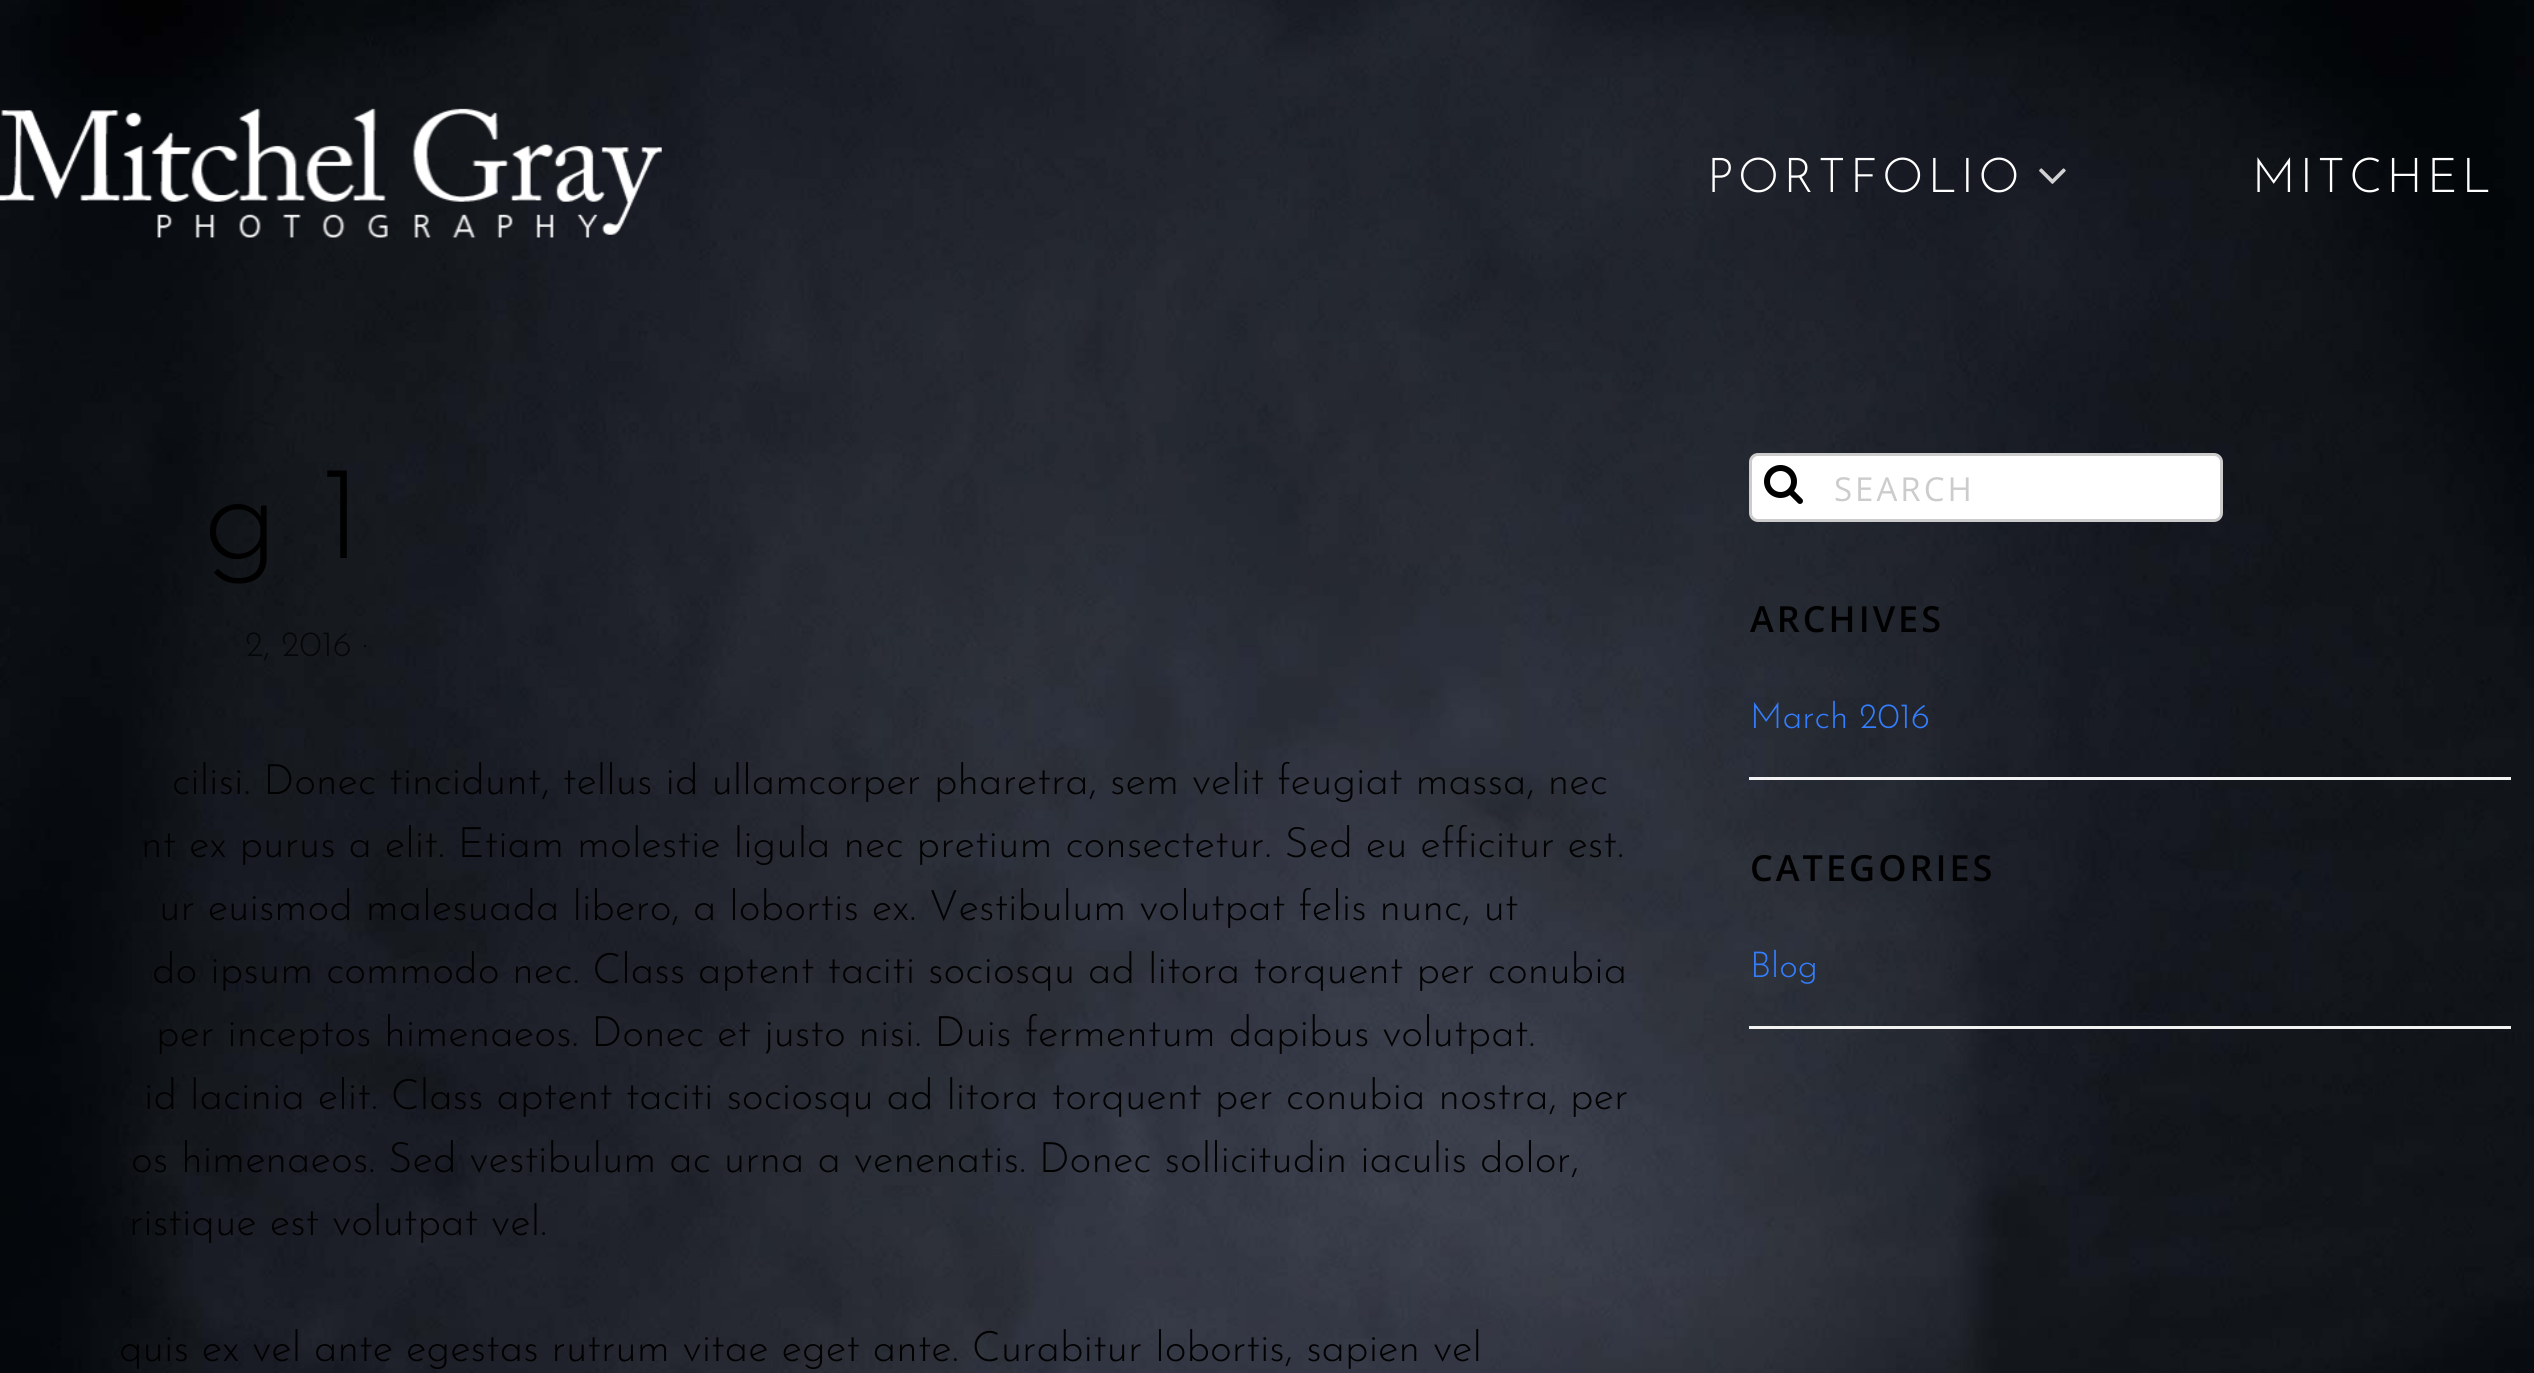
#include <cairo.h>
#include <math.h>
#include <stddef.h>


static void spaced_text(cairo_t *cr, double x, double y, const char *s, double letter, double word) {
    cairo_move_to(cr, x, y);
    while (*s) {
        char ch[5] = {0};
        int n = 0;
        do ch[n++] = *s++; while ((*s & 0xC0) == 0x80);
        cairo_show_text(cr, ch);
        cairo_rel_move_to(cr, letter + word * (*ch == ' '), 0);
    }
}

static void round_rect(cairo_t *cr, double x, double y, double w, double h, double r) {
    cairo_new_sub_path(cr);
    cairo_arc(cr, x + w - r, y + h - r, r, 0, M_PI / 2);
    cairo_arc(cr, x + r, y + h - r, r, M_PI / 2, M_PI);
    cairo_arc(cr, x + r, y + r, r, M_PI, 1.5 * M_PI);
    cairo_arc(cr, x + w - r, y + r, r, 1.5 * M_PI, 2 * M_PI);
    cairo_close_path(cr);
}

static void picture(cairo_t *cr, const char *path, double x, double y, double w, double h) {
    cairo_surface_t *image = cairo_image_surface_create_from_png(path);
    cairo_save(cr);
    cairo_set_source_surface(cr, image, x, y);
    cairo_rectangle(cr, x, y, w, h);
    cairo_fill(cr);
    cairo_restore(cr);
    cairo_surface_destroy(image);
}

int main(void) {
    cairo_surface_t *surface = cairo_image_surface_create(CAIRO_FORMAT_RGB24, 2534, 1373);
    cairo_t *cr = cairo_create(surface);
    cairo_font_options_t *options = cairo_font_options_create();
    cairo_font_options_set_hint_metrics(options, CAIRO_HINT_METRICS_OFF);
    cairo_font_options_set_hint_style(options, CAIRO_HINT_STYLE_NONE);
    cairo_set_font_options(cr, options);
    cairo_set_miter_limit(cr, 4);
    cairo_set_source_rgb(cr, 1, 1, 1);
    cairo_paint(cr);
    picture(cr, "img1.png", 0, 0, 2534, 1373);
    picture(cr, "img2.png", 0, 108, 662, 130);
    cairo_select_font_face(cr, "Josefin Sans Light", CAIRO_FONT_SLANT_NORMAL, CAIRO_FONT_WEIGHT_NORMAL);
    cairo_set_font_size(cr, 48);
    cairo_set_source_rgb(cr, 1, 1, 1);
    spaced_text(cr, 1707, 192, "PORTFOLIO", 4.25, 0);
    picture(cr, "img3.png", 2039, 168, 27, 16);
    spaced_text(cr, 2252, 192, "MITCHEL", 4.25, 0);
    cairo_set_font_size(cr, 134);
    cairo_set_source_rgb(cr, 0, 0, 0);
    cairo_move_to(cr, 203, 558);
    cairo_show_text(cr, "g 1");
    cairo_set_font_size(cr, 35.75);
    cairo_set_source_rgb(cr, 0.02, 0.024, 0.031);
    cairo_move_to(cr, 245, 656);
    cairo_show_text(cr, "2, 2016");
    cairo_move_to(cr, 362, 656);
    cairo_show_text(cr, "·");
    cairo_set_font_size(cr, 42);
    cairo_set_source_rgb(cr, 0, 0, 0);
    cairo_move_to(cr, 172, 794);
    cairo_show_text(cr, "cilisi. Donec tincidunt, tellus id ullamcorper pharetra, sem velit feugiat massa, nec");
    cairo_move_to(cr, 141, 857);
    cairo_show_text(cr, "nt ex purus a elit. Etiam molestie ligula nec pretium consectetur. Sed eu efficitur est.");
    cairo_move_to(cr, 159, 920);
    cairo_show_text(cr, "ur euismod malesuada libero, a lobortis ex. Vestibulum volutpat felis nunc, ut");
    cairo_move_to(cr, 152, 983);
    cairo_show_text(cr, "do ipsum commodo nec. Class aptent taciti sociosqu ad litora torquent per conubia");
    cairo_move_to(cr, 156, 1046);
    cairo_show_text(cr, "per inceptos himenaeos. Donec et justo nisi. Duis fermentum dapibus volutpat.");
    cairo_move_to(cr, 144, 1109);
    cairo_show_text(cr, "id lacinia elit. Class aptent taciti sociosqu ad litora torquent per conubia nostra, per");
    cairo_move_to(cr, 131, 1172);
    cairo_show_text(cr, "os himenaeos. Sed vestibulum ac urna a venenatis. Donec sollicitudin iaculis dolor,");
    cairo_move_to(cr, 129, 1235);
    cairo_show_text(cr, "ristique est volutpat vel.");
    cairo_move_to(cr, 119, 1361);
    cairo_show_text(cr, "quis ex vel ante egestas rutrum vitae eget ante. Curabitur lobortis, sapien vel");
    cairo_set_source_rgb(cr, 1, 1, 1);
    round_rect(cr, 1750.5, 454.5, 471, 66, 7.5);
    cairo_fill_preserve(cr);
    cairo_set_source_rgb(cr, 0.8, 0.8, 0.8);
    cairo_set_line_width(cr, 3);
    cairo_stroke(cr);
    picture(cr, "img4.png", 1764, 465, 39, 39);
    cairo_select_font_face(cr, "Open Sans", CAIRO_FONT_SLANT_NORMAL, CAIRO_FONT_WEIGHT_NORMAL);
    cairo_set_font_size(cr, 33);
    spaced_text(cr, 1834, 501, "SEARCH", 3, 0);
    cairo_select_font_face(cr, "Open Sans SemiBold", CAIRO_FONT_SLANT_NORMAL, CAIRO_FONT_WEIGHT_NORMAL);
    cairo_set_font_size(cr, 36);
    cairo_set_source_rgb(cr, 0, 0, 0);
    spaced_text(cr, 1750, 632, "ARCHIVES", 3, 0);
    cairo_set_source_rgb(cr, 0.949, 0.949, 0.949);
    cairo_rectangle(cr, 1749, 777, 762, 3);
    cairo_fill(cr);
    cairo_select_font_face(cr, "Josefin Sans Light", CAIRO_FONT_SLANT_NORMAL, CAIRO_FONT_WEIGHT_NORMAL);
    cairo_set_font_size(cr, 35.75);
    cairo_set_source_rgb(cr, 0.2, 0.494, 1);
    cairo_move_to(cr, 1750, 728);
    cairo_show_text(cr, "March 2016");
    cairo_select_font_face(cr, "Open Sans SemiBold", CAIRO_FONT_SLANT_NORMAL, CAIRO_FONT_WEIGHT_NORMAL);
    cairo_set_font_size(cr, 36);
    cairo_set_source_rgb(cr, 0, 0, 0);
    spaced_text(cr, 1750, 881, "CATEGORIES", 3, 0);
    cairo_set_source_rgb(cr, 0.949, 0.949, 0.949);
    cairo_rectangle(cr, 1749, 1026, 762, 3);
    cairo_fill(cr);
    cairo_select_font_face(cr, "Josefin Sans Light", CAIRO_FONT_SLANT_NORMAL, CAIRO_FONT_WEIGHT_NORMAL);
    cairo_set_font_size(cr, 35.75);
    cairo_set_source_rgb(cr, 0.2, 0.494, 1);
    cairo_move_to(cr, 1750, 977);
    cairo_show_text(cr, "Blog");
    cairo_surface_write_to_png(surface, "page.png");
    cairo_font_options_destroy(options);
    cairo_destroy(cr);
    cairo_surface_destroy(surface);
    return 0;
}
